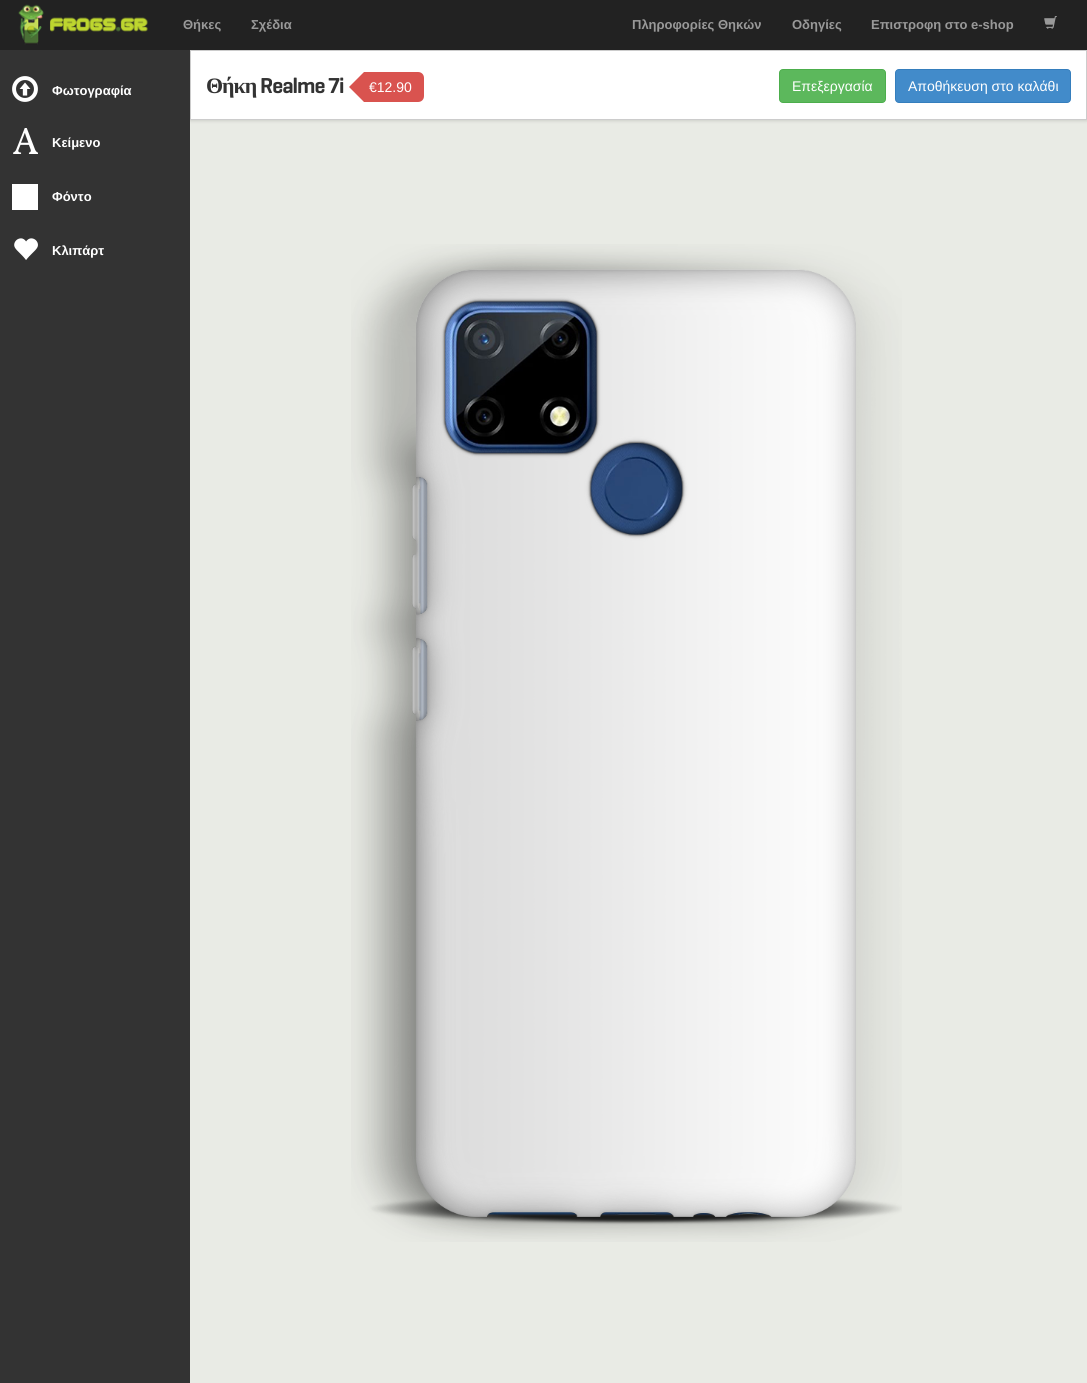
#include <cairo.h>
#include <math.h>
#include <stddef.h>


static void spaced_text(cairo_t *cr, double x, double y, const char *s, double letter, double word) {
    cairo_move_to(cr, x, y);
    while (*s) {
        char ch[5] = {0};
        int n = 0;
        do ch[n++] = *s++; while ((*s & 0xC0) == 0x80);
        cairo_show_text(cr, ch);
        cairo_rel_move_to(cr, letter + word * (*ch == ' '), 0);
    }
}

static void round_rect(cairo_t *cr, double x, double y, double w, double h, double r) {
    cairo_new_sub_path(cr);
    cairo_arc(cr, x + w - r, y + h - r, r, 0, M_PI / 2);
    cairo_arc(cr, x + r, y + h - r, r, M_PI / 2, M_PI);
    cairo_arc(cr, x + r, y + r, r, M_PI, 1.5 * M_PI);
    cairo_arc(cr, x + w - r, y + r, r, 1.5 * M_PI, 2 * M_PI);
    cairo_close_path(cr);
}

static void shadow(cairo_t *cr, double x, double y, double w, double h, double r, double blur, double alpha) {
    cairo_push_group_with_content(cr, CAIRO_CONTENT_ALPHA);
    cairo_set_operator(cr, CAIRO_OPERATOR_SOURCE);
    for (int i = 15; i >= -15 && fmin(w, h) + blur * i / 3 > 0; i -= 2) {
        double e = blur * i / 6;
        cairo_set_source_rgba(cr, 0, 0, 0, alpha * erfc((i - 1) / 8.5) / 2);
        round_rect(cr, x - e, y - e, w + 2 * e, h + 2 * e, fmax(0, fmin(r + e + blur * .6, fmin(w, h) / 2 + e)));
        cairo_fill(cr);
    }
    cairo_pattern_t *soft = cairo_pop_group(cr);
    cairo_mask(cr, soft);
    cairo_pattern_destroy(soft);
}

static void picture(cairo_t *cr, const char *path, double x, double y, double w, double h) {
    cairo_surface_t *image = cairo_image_surface_create_from_png(path);
    cairo_save(cr);
    cairo_set_source_surface(cr, image, x, y);
    cairo_rectangle(cr, x, y, w, h);
    cairo_fill(cr);
    cairo_restore(cr);
    cairo_surface_destroy(image);
}

int main(void) {
    cairo_surface_t *surface = cairo_image_surface_create(CAIRO_FORMAT_RGB24, 1087, 1383);
    cairo_t *cr = cairo_create(surface);
    cairo_font_options_t *options = cairo_font_options_create();
    cairo_font_options_set_hint_metrics(options, CAIRO_HINT_METRICS_OFF);
    cairo_font_options_set_hint_style(options, CAIRO_HINT_STYLE_NONE);
    cairo_set_font_options(cr, options);
    cairo_set_miter_limit(cr, 4);
    cairo_set_source_rgb(cr, 0.914, 0.918, 0.898);
    cairo_paint(cr);
    cairo_set_source_rgb(cr, 0, 0, 0);
    shadow(cr, 190, 51, 897, 70, 0, 1.5, 0.13);
    cairo_set_source_rgb(cr, 0.133, 0.133, 0.133);
    cairo_rectangle(cr, 0, 0, 1087, 50);
    cairo_fill(cr);
    picture(cr, "img1.png", 18, 4, 130, 41);
    cairo_select_font_face(cr, "Liberation Sans", CAIRO_FONT_SLANT_NORMAL, CAIRO_FONT_WEIGHT_BOLD);
    cairo_set_font_size(cr, 13);
    cairo_set_source_rgb(cr, 0.6, 0.6, 0.6);
    cairo_move_to(cr, 183, 29);
    cairo_show_text(cr, "Θήκες");
    cairo_move_to(cr, 251, 29);
    cairo_show_text(cr, "Σχέδια");
    cairo_move_to(cr, 632, 29);
    cairo_show_text(cr, "Πληροφορίες Θηκών");
    cairo_move_to(cr, 792, 29);
    cairo_show_text(cr, "Οδηγίες");
    cairo_move_to(cr, 871, 29);
    cairo_show_text(cr, "Επιστροφη στο e-shop");
    picture(cr, "img2.png", 1044, 16, 13, 13);
    cairo_set_source_rgb(cr, 0.2, 0.2, 0.2);
    cairo_rectangle(cr, 0, 50, 190, 1333);
    cairo_fill(cr);
    picture(cr, "img3.png", 12, 76, 26, 26);
    cairo_set_source_rgb(cr, 1, 1, 1);
    cairo_move_to(cr, 52, 95);
    cairo_show_text(cr, "Φωτογραφία");
    picture(cr, "img4.png", 13, 128, 25, 26);
    cairo_move_to(cr, 52, 147);
    cairo_show_text(cr, "Κείμενο");
    cairo_rectangle(cr, 12, 184, 26, 26);
    cairo_fill(cr);
    cairo_move_to(cr, 52, 201);
    cairo_show_text(cr, "Φόντο");
    picture(cr, "img5.png", 14, 238, 24, 22);
    cairo_move_to(cr, 52, 255);
    cairo_show_text(cr, "Κλιπάρτ");
    cairo_rectangle(cr, 190.5, 50.5, 896, 69);
    cairo_fill_preserve(cr);
    cairo_set_source_rgb(cr, 0.8, 0.8, 0.8);
    cairo_set_line_width(cr, 1);
    cairo_stroke(cr);
    cairo_select_font_face(cr, "Liberation Serif", CAIRO_FONT_SLANT_NORMAL, CAIRO_FONT_WEIGHT_BOLD);
    cairo_set_font_size(cr, 22);
    cairo_set_source_rgb(cr, 0.2, 0.2, 0.2);
    spaced_text(cr, 206, 93, "Θήκη", -1, 0);
    cairo_select_font_face(cr, "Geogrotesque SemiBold", CAIRO_FONT_SLANT_NORMAL, CAIRO_FONT_WEIGHT_NORMAL);
    spaced_text(cr, 260, 93, "Realme 7i", -1, 0);
    cairo_set_source_rgb(cr, 0.851, 0.325, 0.31);
    cairo_new_path(cr);
    cairo_move_to(cr, 364, 72);
    cairo_line_to(cr, 418, 72);
    cairo_curve_to(cr, 421.5, 72, 424, 74.5, 424, 78);
    cairo_line_to(cr, 424, 96);
    cairo_curve_to(cr, 424, 99.5, 421.5, 102, 418, 102);
    cairo_line_to(cr, 364, 102);
    cairo_close_path(cr);
    cairo_fill(cr);
    cairo_new_path(cr);
    cairo_move_to(cr, 364, 72);
    cairo_line_to(cr, 364, 102);
    cairo_line_to(cr, 349, 87);
    cairo_close_path(cr);
    cairo_fill(cr);
    cairo_select_font_face(cr, "Liberation Sans", CAIRO_FONT_SLANT_NORMAL, CAIRO_FONT_WEIGHT_NORMAL);
    cairo_set_font_size(cr, 14);
    cairo_set_source_rgb(cr, 1, 1, 1);
    cairo_move_to(cr, 369, 92);
    cairo_show_text(cr, "€12.90");
    cairo_set_source_rgb(cr, 0.361, 0.722, 0.361);
    round_rect(cr, 779.5, 69.5, 106, 33, 3.5);
    cairo_fill_preserve(cr);
    cairo_set_source_rgb(cr, 0.298, 0.682, 0.298);
    cairo_stroke(cr);
    cairo_set_source_rgb(cr, 1, 1, 1);
    cairo_move_to(cr, 792, 91);
    cairo_show_text(cr, "Επεξεργασία");
    cairo_set_source_rgb(cr, 0.259, 0.545, 0.792);
    round_rect(cr, 895.5, 69.5, 175, 33, 3.5);
    cairo_fill_preserve(cr);
    cairo_set_source_rgb(cr, 0.208, 0.494, 0.741);
    cairo_stroke(cr);
    cairo_set_source_rgb(cr, 1, 1, 1);
    cairo_move_to(cr, 908, 91);
    cairo_show_text(cr, "Αποθήκευση στο καλάθι");
    picture(cr, "img6.png", 351, 244, 551, 998);
    cairo_surface_write_to_png(surface, "page.png");
    cairo_font_options_destroy(options);
    cairo_destroy(cr);
    cairo_surface_destroy(surface);
    return 0;
}
